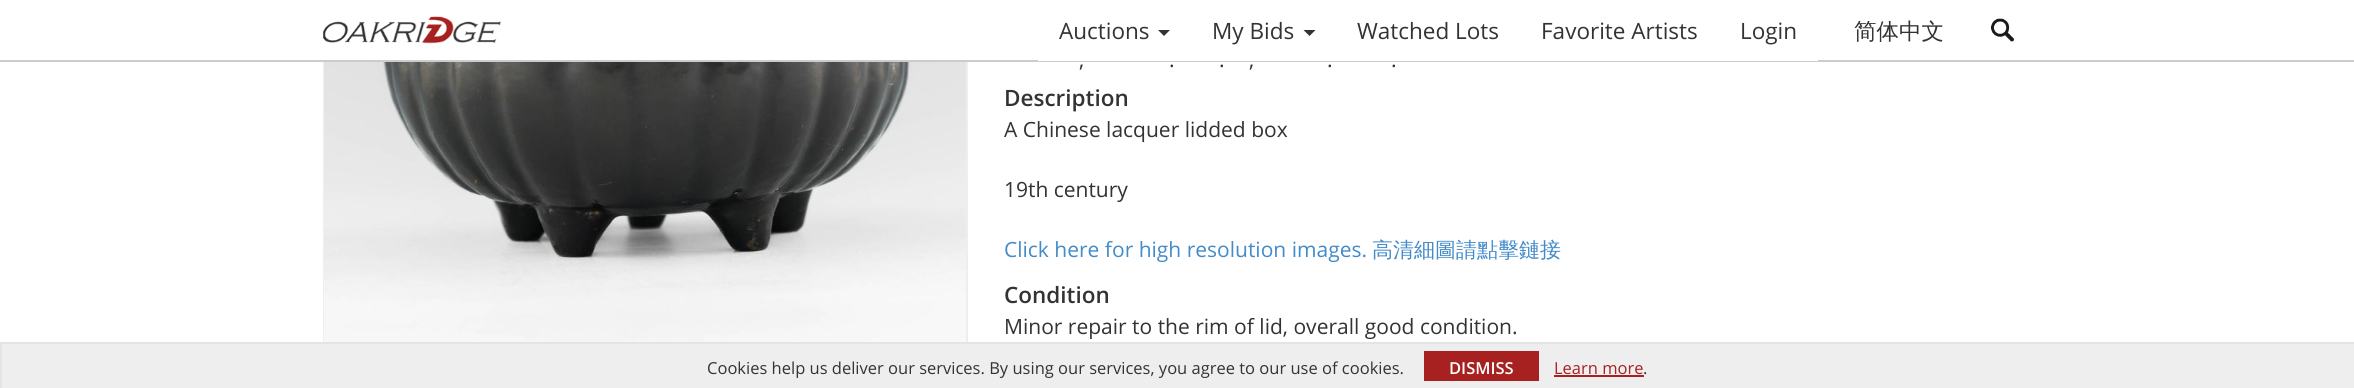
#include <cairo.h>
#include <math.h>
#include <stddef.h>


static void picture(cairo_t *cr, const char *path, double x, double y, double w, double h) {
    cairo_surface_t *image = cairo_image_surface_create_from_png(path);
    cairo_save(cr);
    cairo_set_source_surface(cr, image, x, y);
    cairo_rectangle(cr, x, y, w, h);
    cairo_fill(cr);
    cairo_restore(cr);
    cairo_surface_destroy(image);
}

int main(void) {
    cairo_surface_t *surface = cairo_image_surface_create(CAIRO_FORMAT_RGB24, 2354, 388);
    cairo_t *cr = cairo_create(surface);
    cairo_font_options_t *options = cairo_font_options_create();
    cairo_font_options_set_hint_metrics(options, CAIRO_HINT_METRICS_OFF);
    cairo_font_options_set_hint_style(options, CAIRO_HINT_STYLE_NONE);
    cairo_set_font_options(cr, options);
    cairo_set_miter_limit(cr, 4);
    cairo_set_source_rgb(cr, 1, 1, 1);
    cairo_paint(cr);
    cairo_rectangle(cr, 324, -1, 643, 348);
    cairo_set_source_rgb(cr, 0.933, 0.933, 0.933);
    cairo_stroke(cr);
    cairo_set_source_rgb(cr, 1, 1, 1);
    cairo_rectangle(cr, 323, 0, 645, 60);
    cairo_fill(cr);
    cairo_set_source_rgb(cr, 0.8, 0.8, 0.8);
    cairo_rectangle(cr, 0, 60, 2354, 2);
    cairo_fill(cr);
    picture(cr, "img1.png", 323, 16, 178, 28);
    cairo_set_source_rgb(cr, 1, 1, 1);
    cairo_rectangle(cr, 1038, 60, 780, 1);
    cairo_fill(cr);
    cairo_select_font_face(cr, "Open Sans", CAIRO_FONT_SLANT_NORMAL, CAIRO_FONT_WEIGHT_NORMAL);
    cairo_set_font_size(cr, 22.5);
    cairo_set_source_rgb(cr, 0.2, 0.2, 0.2);
    cairo_move_to(cr, 1059, 39);
    cairo_show_text(cr, "Auctions");
    cairo_new_path(cr);
    cairo_move_to(cr, 1158, 30);
    cairo_line_to(cr, 1170, 30);
    cairo_line_to(cr, 1164, 36);
    cairo_close_path(cr);
    cairo_fill(cr);
    cairo_move_to(cr, 1212, 39);
    cairo_show_text(cr, "My Bids");
    cairo_new_path(cr);
    cairo_move_to(cr, 1303.5, 30);
    cairo_line_to(cr, 1315.5, 30);
    cairo_line_to(cr, 1309.5, 36);
    cairo_close_path(cr);
    cairo_fill(cr);
    cairo_move_to(cr, 1357, 39);
    cairo_show_text(cr, "Watched Lots");
    cairo_move_to(cr, 1541, 39);
    cairo_show_text(cr, "Favorite Artists");
    cairo_move_to(cr, 1740, 39);
    cairo_show_text(cr, "Login");
    cairo_select_font_face(cr, "WenQuanYi Zen Hei Medium", CAIRO_FONT_SLANT_NORMAL, CAIRO_FONT_WEIGHT_NORMAL);
    cairo_move_to(cr, 1854, 39);
    cairo_show_text(cr, "简体中文");
    picture(cr, "img2.png", 1991, 18, 23, 24);
    picture(cr, "img3.png", 324, 62, 642, 280);
    cairo_select_font_face(cr, "Open Sans", CAIRO_FONT_SLANT_NORMAL, CAIRO_FONT_WEIGHT_NORMAL);
    cairo_set_font_size(cr, 21);
    cairo_move_to(cr, 1079, 67);
    cairo_show_text(cr, ",");
    cairo_move_to(cr, 1169, 67);
    cairo_show_text(cr, ".");
    cairo_move_to(cr, 1219, 67);
    cairo_show_text(cr, ".");
    cairo_move_to(cr, 1249, 67);
    cairo_show_text(cr, ",");
    cairo_move_to(cr, 1327, 67);
    cairo_show_text(cr, ".");
    cairo_move_to(cr, 1391, 67);
    cairo_show_text(cr, ".");
    cairo_select_font_face(cr, "Open Sans SemiBold", CAIRO_FONT_SLANT_NORMAL, CAIRO_FONT_WEIGHT_NORMAL);
    cairo_set_font_size(cr, 22.5);
    cairo_move_to(cr, 1004, 106);
    cairo_show_text(cr, "Description");
    cairo_select_font_face(cr, "Open Sans", CAIRO_FONT_SLANT_NORMAL, CAIRO_FONT_WEIGHT_NORMAL);
    cairo_set_font_size(cr, 21);
    cairo_move_to(cr, 1004, 137);
    cairo_show_text(cr, "A Chinese lacquer lidded box");
    cairo_move_to(cr, 1004, 197);
    cairo_show_text(cr, "19th century");
    cairo_set_source_rgb(cr, 0.259, 0.545, 0.792);
    cairo_move_to(cr, 1004, 257);
    cairo_show_text(cr, "Click here for high resolution images.");
    cairo_select_font_face(cr, "WenQuanYi Zen Hei Medium", CAIRO_FONT_SLANT_NORMAL, CAIRO_FONT_WEIGHT_NORMAL);
    cairo_move_to(cr, 1372, 257);
    cairo_show_text(cr, "高清細圖請點擊鏈接");
    cairo_select_font_face(cr, "Open Sans SemiBold", CAIRO_FONT_SLANT_NORMAL, CAIRO_FONT_WEIGHT_NORMAL);
    cairo_set_font_size(cr, 22.5);
    cairo_set_source_rgb(cr, 0.2, 0.2, 0.2);
    cairo_move_to(cr, 1004, 303);
    cairo_show_text(cr, "Condition");
    cairo_select_font_face(cr, "Open Sans", CAIRO_FONT_SLANT_NORMAL, CAIRO_FONT_WEIGHT_NORMAL);
    cairo_set_font_size(cr, 21);
    cairo_move_to(cr, 1004, 334);
    cairo_show_text(cr, "Minor repair to the rim of lid, overall good condition.");
    cairo_set_source_rgb(cr, 0.933, 0.933, 0.933);
    cairo_rectangle(cr, 2, 344, 2352, 44);
    cairo_fill(cr);
    cairo_set_source_rgb(cr, 0.894, 0.894, 0.894);
    cairo_rectangle(cr, 0, 342, 2354, 2);
    cairo_fill(cr);
    cairo_rectangle(cr, 0, 342, 2, 46);
    cairo_fill(cr);
    cairo_set_font_size(cr, 16.5);
    cairo_set_source_rgb(cr, 0.2, 0.2, 0.2);
    cairo_move_to(cr, 707, 374);
    cairo_show_text(cr, "Cookies help us deliver our services. By using our services, you agree to our use of cookies.");
    cairo_set_source_rgb(cr, 0.655, 0.129, 0.129);
    cairo_rectangle(cr, 1424, 351, 115, 30);
    cairo_fill(cr);
    cairo_select_font_face(cr, "Open Sans SemiBold", CAIRO_FONT_SLANT_NORMAL, CAIRO_FONT_WEIGHT_NORMAL);
    cairo_set_source_rgb(cr, 1, 1, 1);
    cairo_move_to(cr, 1449, 374);
    cairo_show_text(cr, "DISMISS");
    cairo_select_font_face(cr, "Open Sans", CAIRO_FONT_SLANT_NORMAL, CAIRO_FONT_WEIGHT_NORMAL);
    cairo_set_source_rgb(cr, 0.655, 0.129, 0.129);
    cairo_move_to(cr, 1554, 374);
    cairo_show_text(cr, "Learn more");
    cairo_rectangle(cr, 1554, 375, 90, 2);
    cairo_fill(cr);
    cairo_set_source_rgb(cr, 0.2, 0.2, 0.2);
    cairo_move_to(cr, 1643, 374);
    cairo_show_text(cr, ".");
    cairo_surface_write_to_png(surface, "page.png");
    cairo_font_options_destroy(options);
    cairo_destroy(cr);
    cairo_surface_destroy(surface);
    return 0;
}
